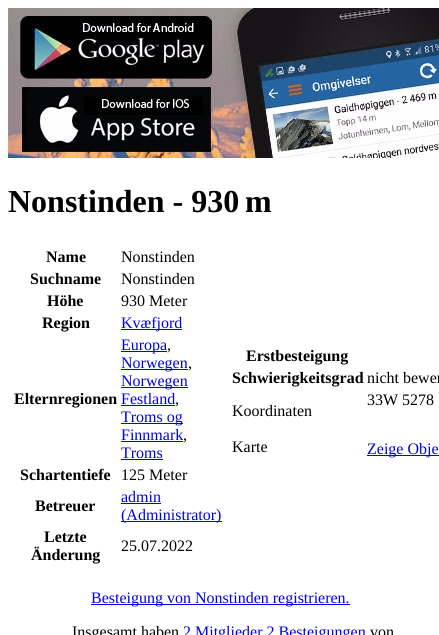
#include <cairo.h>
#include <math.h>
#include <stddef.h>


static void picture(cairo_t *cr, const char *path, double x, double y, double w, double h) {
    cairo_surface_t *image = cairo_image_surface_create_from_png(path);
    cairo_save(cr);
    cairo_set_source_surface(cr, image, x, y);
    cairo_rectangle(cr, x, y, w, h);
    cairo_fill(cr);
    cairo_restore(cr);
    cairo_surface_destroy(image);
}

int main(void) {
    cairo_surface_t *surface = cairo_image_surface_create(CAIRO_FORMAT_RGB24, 439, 635);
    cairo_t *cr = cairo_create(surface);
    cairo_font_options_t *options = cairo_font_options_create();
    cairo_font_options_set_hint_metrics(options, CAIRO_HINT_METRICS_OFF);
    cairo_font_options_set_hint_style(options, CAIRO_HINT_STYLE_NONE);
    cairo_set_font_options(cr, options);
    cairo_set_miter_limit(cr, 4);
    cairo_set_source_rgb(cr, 1, 1, 1);
    cairo_paint(cr);
    picture(cr, "img1.png", 8, 8, 431, 150);
    cairo_select_font_face(cr, "Liberation Serif", CAIRO_FONT_SLANT_NORMAL, CAIRO_FONT_WEIGHT_BOLD);
    cairo_set_font_size(cr, 32);
    cairo_set_source_rgb(cr, 0, 0, 0);
    cairo_move_to(cr, 8, 212);
    cairo_show_text(cr, "Nonstinden - 930");
    cairo_move_to(cr, 245, 212);
    cairo_show_text(cr, "m");
    cairo_set_font_size(cr, 16);
    cairo_move_to(cr, 46, 262);
    cairo_show_text(cr, "Name");
    cairo_select_font_face(cr, "Liberation Serif", CAIRO_FONT_SLANT_NORMAL, CAIRO_FONT_WEIGHT_NORMAL);
    cairo_move_to(cr, 121, 262);
    cairo_show_text(cr, "Nonstinden");
    cairo_select_font_face(cr, "Liberation Serif", CAIRO_FONT_SLANT_NORMAL, CAIRO_FONT_WEIGHT_BOLD);
    cairo_move_to(cr, 30, 284);
    cairo_show_text(cr, "Suchname");
    cairo_select_font_face(cr, "Liberation Serif", CAIRO_FONT_SLANT_NORMAL, CAIRO_FONT_WEIGHT_NORMAL);
    cairo_move_to(cr, 121, 284);
    cairo_show_text(cr, "Nonstinden");
    cairo_select_font_face(cr, "Liberation Serif", CAIRO_FONT_SLANT_NORMAL, CAIRO_FONT_WEIGHT_BOLD);
    cairo_move_to(cr, 47, 306);
    cairo_show_text(cr, "Höhe");
    cairo_select_font_face(cr, "Liberation Serif", CAIRO_FONT_SLANT_NORMAL, CAIRO_FONT_WEIGHT_NORMAL);
    cairo_move_to(cr, 121, 306);
    cairo_show_text(cr, "930 Meter");
    cairo_select_font_face(cr, "Liberation Serif", CAIRO_FONT_SLANT_NORMAL, CAIRO_FONT_WEIGHT_BOLD);
    cairo_move_to(cr, 42, 328);
    cairo_show_text(cr, "Region");
    cairo_set_source_rgb(cr, 0, 0, 0.933);
    cairo_rectangle(cr, 121, 329, 61, 1);
    cairo_fill(cr);
    cairo_select_font_face(cr, "Liberation Serif", CAIRO_FONT_SLANT_NORMAL, CAIRO_FONT_WEIGHT_NORMAL);
    cairo_move_to(cr, 121, 328);
    cairo_show_text(cr, "Kvæfjord");
    cairo_select_font_face(cr, "Liberation Serif", CAIRO_FONT_SLANT_NORMAL, CAIRO_FONT_WEIGHT_BOLD);
    cairo_set_source_rgb(cr, 0, 0, 0);
    cairo_move_to(cr, 14, 404);
    cairo_show_text(cr, "Elternregionen");
    cairo_set_source_rgb(cr, 0, 0, 0.933);
    cairo_rectangle(cr, 121, 351, 46, 1);
    cairo_fill(cr);
    cairo_select_font_face(cr, "Liberation Serif", CAIRO_FONT_SLANT_NORMAL, CAIRO_FONT_WEIGHT_NORMAL);
    cairo_move_to(cr, 121, 350);
    cairo_show_text(cr, "Europa");
    cairo_set_source_rgb(cr, 0, 0, 0);
    cairo_move_to(cr, 167, 350);
    cairo_show_text(cr, ",");
    cairo_set_source_rgb(cr, 0, 0, 0.933);
    cairo_rectangle(cr, 121, 369, 67, 1);
    cairo_fill(cr);
    cairo_move_to(cr, 121, 368);
    cairo_show_text(cr, "Norwegen");
    cairo_set_source_rgb(cr, 0, 0, 0);
    cairo_move_to(cr, 188, 368);
    cairo_show_text(cr, ",");
    cairo_set_source_rgb(cr, 0, 0, 0.933);
    cairo_rectangle(cr, 121, 387, 67, 1);
    cairo_fill(cr);
    cairo_move_to(cr, 121, 386);
    cairo_show_text(cr, "Norwegen");
    cairo_move_to(cr, 121, 404);
    cairo_show_text(cr, "Festland");
    cairo_rectangle(cr, 121, 405, 54, 1);
    cairo_fill(cr);
    cairo_set_source_rgb(cr, 0, 0, 0);
    cairo_move_to(cr, 175, 404);
    cairo_show_text(cr, ",");
    cairo_set_source_rgb(cr, 0, 0, 0.933);
    cairo_rectangle(cr, 121, 423, 62, 1);
    cairo_fill(cr);
    cairo_move_to(cr, 121, 422);
    cairo_show_text(cr, "Troms og");
    cairo_move_to(cr, 121, 440);
    cairo_show_text(cr, "Finnmark");
    cairo_rectangle(cr, 121, 441, 62, 1);
    cairo_fill(cr);
    cairo_set_source_rgb(cr, 0, 0, 0);
    cairo_move_to(cr, 183, 440);
    cairo_show_text(cr, ",");
    cairo_set_source_rgb(cr, 0, 0, 0.933);
    cairo_move_to(cr, 121, 458);
    cairo_show_text(cr, "Troms");
    cairo_rectangle(cr, 121, 459, 42, 1);
    cairo_fill(cr);
    cairo_select_font_face(cr, "Liberation Serif", CAIRO_FONT_SLANT_NORMAL, CAIRO_FONT_WEIGHT_BOLD);
    cairo_set_source_rgb(cr, 0, 0, 0);
    cairo_move_to(cr, 20, 480);
    cairo_show_text(cr, "Schartentiefe");
    cairo_select_font_face(cr, "Liberation Serif", CAIRO_FONT_SLANT_NORMAL, CAIRO_FONT_WEIGHT_NORMAL);
    cairo_move_to(cr, 121, 480);
    cairo_show_text(cr, "125 Meter");
    cairo_select_font_face(cr, "Liberation Serif", CAIRO_FONT_SLANT_NORMAL, CAIRO_FONT_WEIGHT_BOLD);
    cairo_move_to(cr, 35, 511);
    cairo_show_text(cr, "Betreuer");
    cairo_select_font_face(cr, "Liberation Serif", CAIRO_FONT_SLANT_NORMAL, CAIRO_FONT_WEIGHT_NORMAL);
    cairo_set_source_rgb(cr, 0, 0, 0.933);
    cairo_move_to(cr, 121, 502);
    cairo_show_text(cr, "admin");
    cairo_rectangle(cr, 121, 503, 40, 1);
    cairo_fill(cr);
    cairo_rectangle(cr, 121, 521, 101, 1);
    cairo_fill(cr);
    cairo_move_to(cr, 121, 520);
    cairo_show_text(cr, "(Administrator)");
    cairo_select_font_face(cr, "Liberation Serif", CAIRO_FONT_SLANT_NORMAL, CAIRO_FONT_WEIGHT_BOLD);
    cairo_set_source_rgb(cr, 0, 0, 0);
    cairo_move_to(cr, 44, 542);
    cairo_show_text(cr, "Letzte");
    cairo_move_to(cr, 31, 560);
    cairo_show_text(cr, "Änderung");
    cairo_select_font_face(cr, "Liberation Serif", CAIRO_FONT_SLANT_NORMAL, CAIRO_FONT_WEIGHT_NORMAL);
    cairo_move_to(cr, 121, 551);
    cairo_show_text(cr, "25.07.2022");
    cairo_select_font_face(cr, "Liberation Serif", CAIRO_FONT_SLANT_NORMAL, CAIRO_FONT_WEIGHT_BOLD);
    cairo_move_to(cr, 246, 361);
    cairo_show_text(cr, "Erstbesteigung");
    cairo_move_to(cr, 232, 383);
    cairo_show_text(cr, "Schwierigkeitsgrad");
    cairo_select_font_face(cr, "Liberation Serif", CAIRO_FONT_SLANT_NORMAL, CAIRO_FONT_WEIGHT_NORMAL);
    cairo_move_to(cr, 367, 383);
    cairo_show_text(cr, "nicht bewer");
    cairo_move_to(cr, 367, 405);
    cairo_show_text(cr, "33W 5278");
    cairo_move_to(cr, 232, 416);
    cairo_show_text(cr, "Koordinaten");
    cairo_move_to(cr, 232, 452);
    cairo_show_text(cr, "Karte");
    cairo_set_source_rgb(cr, 0, 0, 0.933);
    cairo_rectangle(cr, 367, 455, 72, 1);
    cairo_fill(cr);
    cairo_move_to(cr, 367, 454);
    cairo_show_text(cr, "Zeige Obje");
    cairo_rectangle(cr, 91, 604, 259, 1);
    cairo_fill(cr);
    cairo_move_to(cr, 91, 603);
    cairo_show_text(cr, "Besteigung von Nonstinden registrieren.");
    cairo_set_source_rgb(cr, 0, 0, 0);
    cairo_move_to(cr, 72, 637);
    cairo_show_text(cr, "Insgesamt haben");
    cairo_set_source_rgb(cr, 0, 0, 0.933);
    cairo_move_to(cr, 183, 637);
    cairo_show_text(cr, "2 Mitglieder 2 Besteigungen");
    cairo_set_source_rgb(cr, 0, 0, 0);
    cairo_move_to(cr, 370, 637);
    cairo_show_text(cr, "von");
    cairo_surface_write_to_png(surface, "page.png");
    cairo_font_options_destroy(options);
    cairo_destroy(cr);
    cairo_surface_destroy(surface);
    return 0;
}
